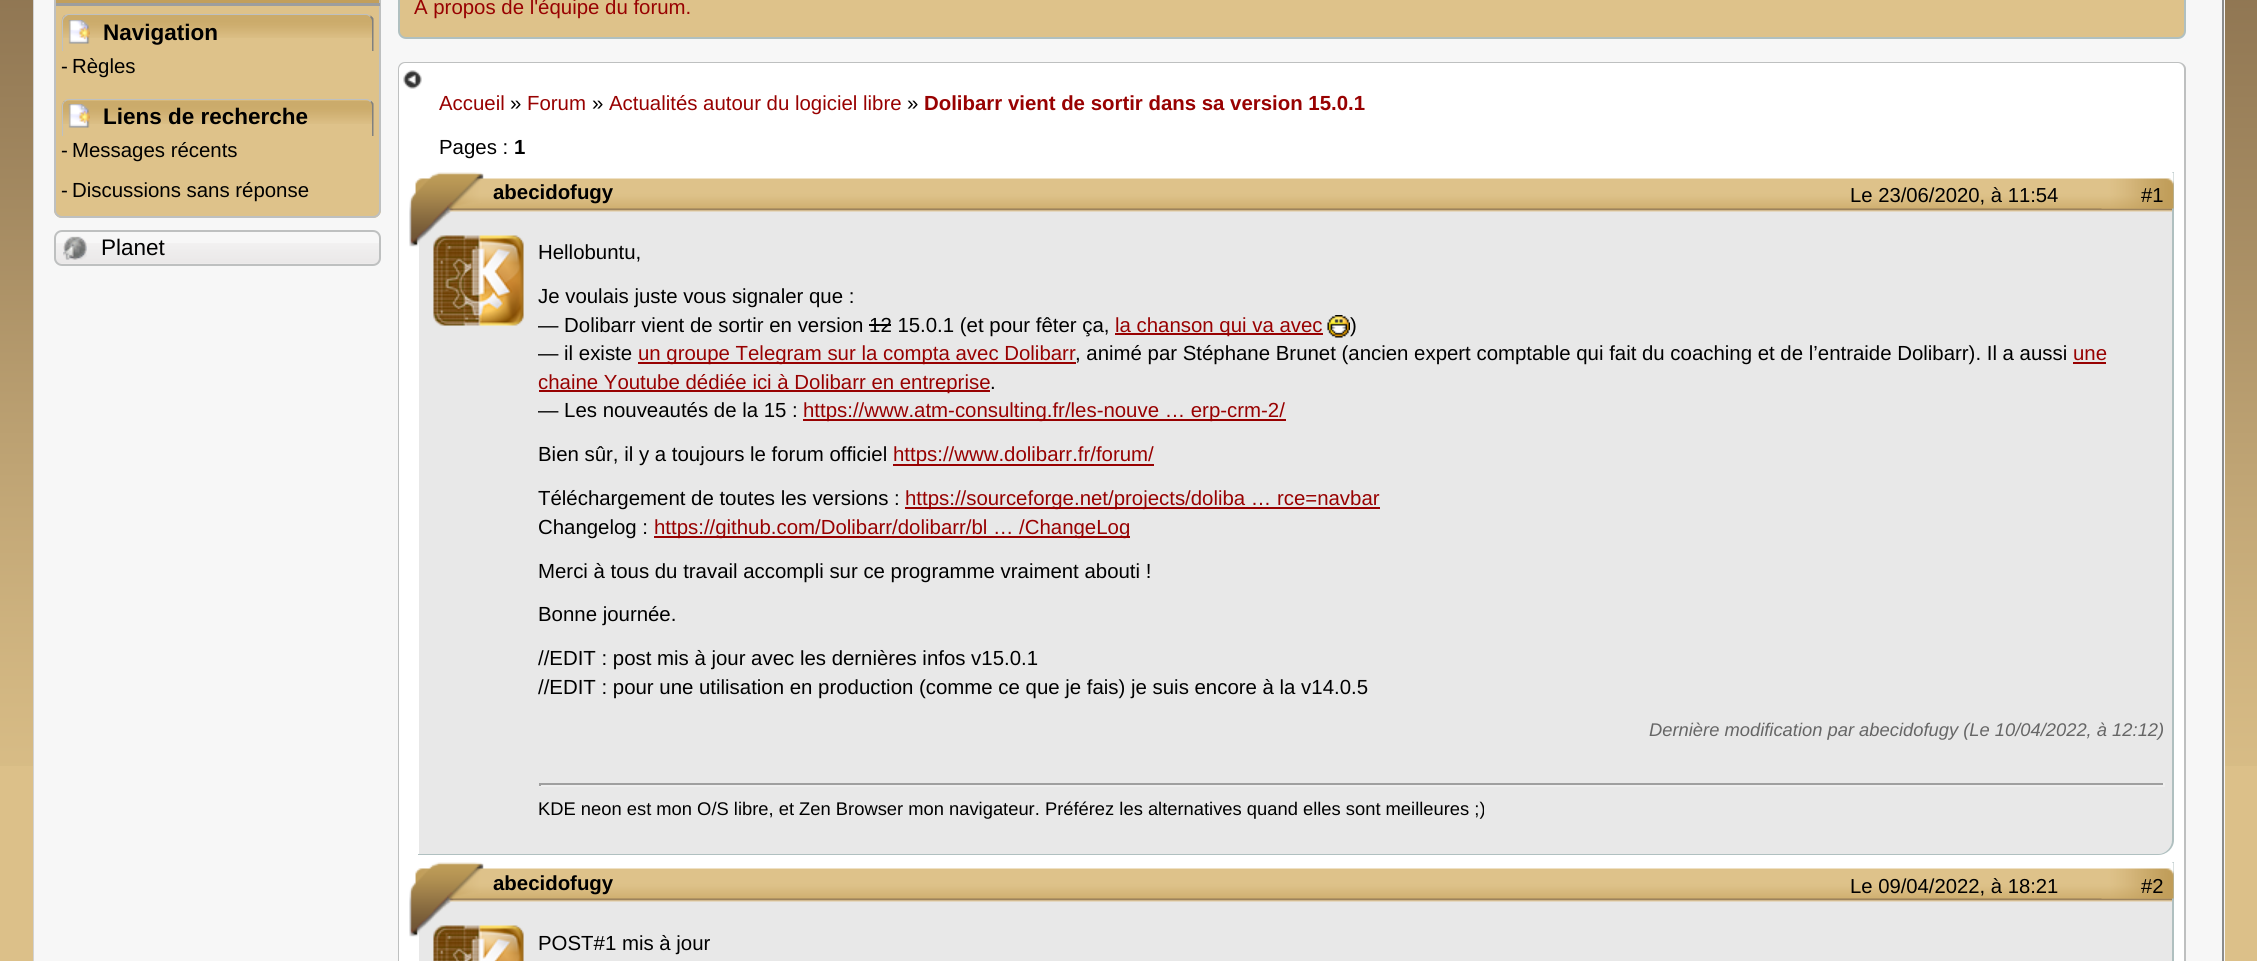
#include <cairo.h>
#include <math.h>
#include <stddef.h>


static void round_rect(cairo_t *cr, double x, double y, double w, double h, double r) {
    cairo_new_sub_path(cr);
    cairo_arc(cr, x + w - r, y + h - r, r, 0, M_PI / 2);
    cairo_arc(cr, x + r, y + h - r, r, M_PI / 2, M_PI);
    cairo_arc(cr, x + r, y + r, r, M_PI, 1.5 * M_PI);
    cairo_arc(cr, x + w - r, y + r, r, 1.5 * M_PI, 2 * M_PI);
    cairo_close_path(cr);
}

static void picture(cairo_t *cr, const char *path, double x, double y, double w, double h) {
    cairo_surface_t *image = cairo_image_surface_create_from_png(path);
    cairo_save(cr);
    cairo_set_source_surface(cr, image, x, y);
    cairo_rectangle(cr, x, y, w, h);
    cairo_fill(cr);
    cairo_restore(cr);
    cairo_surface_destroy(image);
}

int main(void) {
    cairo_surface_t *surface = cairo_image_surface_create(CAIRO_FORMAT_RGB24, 2257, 961);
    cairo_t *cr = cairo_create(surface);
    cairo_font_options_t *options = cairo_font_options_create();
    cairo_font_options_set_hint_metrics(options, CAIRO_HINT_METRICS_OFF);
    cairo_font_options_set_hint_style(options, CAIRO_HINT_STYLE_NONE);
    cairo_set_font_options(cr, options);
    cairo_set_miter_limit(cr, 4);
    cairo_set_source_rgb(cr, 0.863, 0.753, 0.537);
    cairo_paint(cr);
    picture(cr, "img1.png", 0, 0, 2257, 766);
    cairo_set_source_rgb(cr, 0.965, 0.965, 0.965);
    cairo_rectangle(cr, 34, 0, 2191, 961);
    cairo_fill(cr);
    cairo_set_source_rgb(cr, 0.549, 0.549, 0.549);
    cairo_new_path(cr);
    cairo_move_to(cr, 2222, 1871);
    cairo_curve_to(cr, 2223, 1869, 2224, 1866, 2224, 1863);
    cairo_line_to(cr, 2224, -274);
    cairo_curve_to(cr, 2224, -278, 2222, -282, 2219, -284);
    cairo_line_to(cr, 2217, -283);
    cairo_curve_to(cr, 2220, -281, 2222, -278, 2222, -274);
    cairo_line_to(cr, 2222, 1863);
    cairo_curve_to(cr, 2222, 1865, 2221, 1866, 2220, 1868);
    cairo_close_path(cr);
    cairo_fill(cr);
    cairo_set_source_rgb(cr, 0.824, 0.824, 0.824);
    cairo_new_path(cr);
    cairo_move_to(cr, 33, -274);
    cairo_line_to(cr, 33, 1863);
    cairo_curve_to(cr, 33, 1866, 34, 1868, 35, 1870);
    cairo_line_to(cr, 36, 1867);
    cairo_curve_to(cr, 35, 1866, 34, 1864, 34, 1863);
    cairo_line_to(cr, 34, -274);
    cairo_curve_to(cr, 34, -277, 35, -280, 38, -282);
    cairo_line_to(cr, 37, -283);
    cairo_curve_to(cr, 34, -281, 33, -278, 33, -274);
    cairo_close_path(cr);
    cairo_fill(cr);
    cairo_set_source_rgb(cr, 0.871, 0.761, 0.541);
    round_rect(cr, 54, -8, 327, 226, 8);
    cairo_fill(cr);
    cairo_set_source_rgb(cr, 0.761, 0.624, 0.361);
    cairo_rectangle(cr, 54, 0, 327, 3);
    cairo_fill(cr);
    round_rect(cr, 55, -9, 325, 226, 7);
    cairo_set_source_rgb(cr, 0.745, 0.753, 0.753);
    cairo_stroke(cr);
    cairo_set_source_rgb(cr, 0.616, 0.62, 0.62);
    cairo_rectangle(cr, 56, 3, 324, 3);
    cairo_fill(cr);
    picture(cr, "img2.png", 61, 15, 313, 23);
    cairo_set_source_rgb(cr, 0.745, 0.753, 0.753);
    cairo_new_path(cr);
    cairo_move_to(cr, 69, 14);
    cairo_line_to(cr, 367, 14);
    cairo_line_to(cr, 371, 16);
    cairo_line_to(cr, 370, 17);
    cairo_curve_to(cr, 369, 16, 368, 15, 366, 15);
    cairo_line_to(cr, 68, 15);
    cairo_line_to(cr, 65, 17);
    cairo_line_to(cr, 64, 16);
    cairo_curve_to(cr, 65, 15, 67, 14, 69, 14);
    cairo_close_path(cr);
    cairo_fill(cr);
    cairo_set_source_rgb(cr, 0.498, 0.502, 0.502);
    cairo_new_path(cr);
    cairo_move_to(cr, 371, 16);
    cairo_curve_to(cr, 372, 16.5, 373, 17.5, 373.5, 18.5);
    cairo_line_to(cr, 373.5, 51);
    cairo_line_to(cr, 372, 51);
    cairo_line_to(cr, 372, 21);
    cairo_curve_to(cr, 372, 19.5, 371, 18, 370, 17);
    cairo_close_path(cr);
    cairo_fill(cr);
    cairo_set_source_rgb(cr, 0.745, 0.753, 0.753);
    cairo_new_path(cr);
    cairo_move_to(cr, 62, 51);
    cairo_line_to(cr, 63, 51);
    cairo_line_to(cr, 63, 21);
    cairo_curve_to(cr, 63, 19.5, 64, 18, 65, 17);
    cairo_line_to(cr, 64, 16);
    cairo_curve_to(cr, 63, 17, 62, 19, 62, 21);
    cairo_close_path(cr);
    cairo_fill(cr);
    picture(cr, "img3.png", 68, 20, 22, 24);
    cairo_select_font_face(cr, "Liberation Sans", CAIRO_FONT_SLANT_NORMAL, CAIRO_FONT_WEIGHT_BOLD);
    cairo_set_font_size(cr, 22.5);
    cairo_set_source_rgb(cr, 0, 0, 0);
    cairo_move_to(cr, 103, 40);
    cairo_show_text(cr, "Navigation");
    cairo_select_font_face(cr, "Liberation Sans", CAIRO_FONT_SLANT_NORMAL, CAIRO_FONT_WEIGHT_NORMAL);
    cairo_set_font_size(cr, 20.4);
    cairo_move_to(cr, 61, 73);
    cairo_show_text(cr, "-");
    cairo_move_to(cr, 72, 73);
    cairo_show_text(cr, "Règles");
    picture(cr, "img4.png", 61, 100, 313, 24);
    cairo_set_source_rgb(cr, 0.745, 0.753, 0.753);
    cairo_new_path(cr);
    cairo_move_to(cr, 69, 99);
    cairo_line_to(cr, 366, 99);
    cairo_curve_to(cr, 368, 99, 370, 100, 372, 101);
    cairo_line_to(cr, 370, 102);
    cairo_curve_to(cr, 369, 101, 368, 100, 366, 100);
    cairo_line_to(cr, 69, 100);
    cairo_curve_to(cr, 67, 100, 66, 101, 65, 102);
    cairo_line_to(cr, 64, 101);
    cairo_curve_to(cr, 65, 100, 67, 99, 69, 99);
    cairo_close_path(cr);
    cairo_fill(cr);
    cairo_set_source_rgb(cr, 0.498, 0.502, 0.502);
    cairo_new_path(cr);
    cairo_move_to(cr, 373.5, 103.5);
    cairo_line_to(cr, 373.5, 136);
    cairo_line_to(cr, 372, 136);
    cairo_line_to(cr, 372, 106);
    cairo_curve_to(cr, 372, 104.5, 371.5, 103, 370.5, 102);
    cairo_line_to(cr, 371.5, 101);
    cairo_close_path(cr);
    cairo_fill(cr);
    cairo_set_source_rgb(cr, 0.745, 0.753, 0.753);
    cairo_new_path(cr);
    cairo_move_to(cr, 64, 101.5);
    cairo_line_to(cr, 64.5, 102);
    cairo_curve_to(cr, 63.5, 103, 63, 104.5, 63, 106);
    cairo_line_to(cr, 63, 136);
    cairo_line_to(cr, 62, 136);
    cairo_line_to(cr, 62, 106);
    cairo_curve_to(cr, 62, 104, 62.5, 102.5, 64, 101.5);
    cairo_close_path(cr);
    cairo_fill(cr);
    picture(cr, "img5.png", 68, 104, 22, 24);
    cairo_select_font_face(cr, "Liberation Sans", CAIRO_FONT_SLANT_NORMAL, CAIRO_FONT_WEIGHT_BOLD);
    cairo_set_font_size(cr, 22.5);
    cairo_set_source_rgb(cr, 0, 0, 0);
    cairo_move_to(cr, 103, 124);
    cairo_show_text(cr, "Liens de recherche");
    cairo_select_font_face(cr, "Liberation Sans", CAIRO_FONT_SLANT_NORMAL, CAIRO_FONT_WEIGHT_NORMAL);
    cairo_set_font_size(cr, 20.4);
    cairo_move_to(cr, 61, 157);
    cairo_show_text(cr, "-");
    cairo_move_to(cr, 72, 157);
    cairo_show_text(cr, "Messages récents");
    cairo_move_to(cr, 61, 197);
    cairo_show_text(cr, "-");
    cairo_move_to(cr, 72, 197);
    cairo_show_text(cr, "Discussions sans réponse");
    picture(cr, "img6.png", 54, 243, 327, 21);
    round_rect(cr, 55, 231, 325, 34, 7);
    cairo_set_source_rgb(cr, 0.745, 0.753, 0.753);
    cairo_stroke(cr);
    picture(cr, "img7.png", 63, 236, 24, 24);
    cairo_set_font_size(cr, 22.5);
    cairo_set_source_rgb(cr, 0, 0, 0);
    cairo_move_to(cr, 101, 255);
    cairo_show_text(cr, "Planet");
    cairo_set_source_rgb(cr, 0.871, 0.761, 0.541);
    round_rect(cr, 399, -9, 1786, 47, 7);
    cairo_fill_preserve(cr);
    cairo_set_source_rgb(cr, 0.69, 0.753, 0.753);
    cairo_stroke(cr);
    cairo_set_font_size(cr, 20.4);
    cairo_set_source_rgb(cr, 0.596, 0.004, 0.004);
    cairo_move_to(cr, 414, 14);
    cairo_show_text(cr, "À propos de l'équipe du forum.");
    cairo_set_source_rgb(cr, 1, 1, 1);
    cairo_new_path(cr);
    cairo_move_to(cr, 405, 63);
    cairo_line_to(cr, 2178, 63);
    cairo_curve_to(cr, 2181.5, 63, 2184, 65.5, 2184, 69);
    cairo_line_to(cr, 2184, 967);
    cairo_line_to(cr, 399, 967);
    cairo_line_to(cr, 399, 69);
    cairo_curve_to(cr, 399, 65.5, 401.5, 63, 405, 63);
    cairo_close_path(cr);
    cairo_fill(cr);
    cairo_set_source_rgb(cr, 0.745, 0.753, 0.753);
    cairo_set_fill_rule(cr, CAIRO_FILL_RULE_EVEN_ODD);
    cairo_new_path(cr);
    cairo_move_to(cr, 405, 62);
    cairo_line_to(cr, 2178, 62);
    cairo_curve_to(cr, 2182, 62, 2186, 65, 2186, 69);
    cairo_line_to(cr, 2186, 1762);
    cairo_line_to(cr, 398, 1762);
    cairo_line_to(cr, 398, 69);
    cairo_curve_to(cr, 398, 65, 401, 62, 405, 62);
    cairo_close_path(cr);
    cairo_move_to(cr, 405, 63);
    cairo_line_to(cr, 2178, 63);
    cairo_curve_to(cr, 2181, 63, 2184, 66, 2184, 69);
    cairo_line_to(cr, 2184, 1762);
    cairo_line_to(cr, 399, 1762);
    cairo_line_to(cr, 399, 69);
    cairo_curve_to(cr, 399, 66, 402, 63, 405, 63);
    cairo_close_path(cr);
    cairo_fill(cr);
    picture(cr, "img8.png", 403, 70, 19, 19);
    cairo_set_source_rgb(cr, 0.596, 0.004, 0.004);
    cairo_move_to(cr, 439, 110);
    cairo_show_text(cr, "Accueil");
    cairo_set_source_rgb(cr, 0, 0, 0);
    cairo_move_to(cr, 510, 110);
    cairo_show_text(cr, "»");
    cairo_set_source_rgb(cr, 0.596, 0.004, 0.004);
    cairo_move_to(cr, 527, 110);
    cairo_show_text(cr, "Forum");
    cairo_set_source_rgb(cr, 0, 0, 0);
    cairo_move_to(cr, 592, 110);
    cairo_show_text(cr, "»");
    cairo_set_source_rgb(cr, 0.596, 0.004, 0.004);
    cairo_move_to(cr, 609, 110);
    cairo_show_text(cr, "Actualités autour du logiciel libre");
    cairo_set_source_rgb(cr, 0, 0, 0);
    cairo_move_to(cr, 907, 110);
    cairo_show_text(cr, "»");
    cairo_select_font_face(cr, "Liberation Sans", CAIRO_FONT_SLANT_NORMAL, CAIRO_FONT_WEIGHT_BOLD);
    cairo_set_source_rgb(cr, 0.596, 0.004, 0.004);
    cairo_move_to(cr, 924, 110);
    cairo_show_text(cr, "Dolibarr vient de sortir dans sa version 15.0.1");
    cairo_select_font_face(cr, "Liberation Sans", CAIRO_FONT_SLANT_NORMAL, CAIRO_FONT_WEIGHT_NORMAL);
    cairo_set_source_rgb(cr, 0, 0, 0);
    cairo_move_to(cr, 439, 154);
    cairo_show_text(cr, "Pages :");
    cairo_select_font_face(cr, "Liberation Sans", CAIRO_FONT_SLANT_NORMAL, CAIRO_FONT_WEIGHT_BOLD);
    cairo_move_to(cr, 514, 154);
    cairo_show_text(cr, "1");
    cairo_set_source_rgb(cr, 0.91, 0.91, 0.91);
    cairo_new_path(cr);
    cairo_move_to(cr, 434, 173);
    cairo_line_to(cr, 2172, 173);
    cairo_line_to(cr, 2172, 840);
    cairo_curve_to(cr, 2172, 847.5, 2165.5, 854, 2158, 854);
    cairo_line_to(cr, 419, 854);
    cairo_line_to(cr, 419, 188);
    cairo_curve_to(cr, 419, 179.5, 425.5, 173, 434, 173);
    cairo_close_path(cr);
    cairo_fill(cr);
    picture(cr, "img9.png", 447, 173, 1725, 39);
    cairo_set_source_rgb(cr, 0.69, 0.753, 0.753);
    cairo_new_path(cr);
    cairo_move_to(cr, 434, 172);
    cairo_line_to(cr, 2174, 172);
    cairo_line_to(cr, 2174, 840);
    cairo_curve_to(cr, 2174, 848, 2167, 855, 2158, 855);
    cairo_line_to(cr, 418, 855);
    cairo_line_to(cr, 418, 188);
    cairo_curve_to(cr, 418, 179, 425, 172, 434, 172);
    cairo_close_path(cr);
    cairo_move_to(cr, 434, 172);
    cairo_line_to(cr, 2172, 172);
    cairo_line_to(cr, 2172, 840);
    cairo_curve_to(cr, 2172, 847, 2166, 854, 2158, 854);
    cairo_line_to(cr, 418, 854);
    cairo_line_to(cr, 418, 188);
    cairo_curve_to(cr, 418, 179, 425, 172, 434, 172);
    cairo_close_path(cr);
    cairo_fill(cr);
    cairo_set_source_rgb(cr, 0, 0, 0);
    cairo_move_to(cr, 493, 199);
    cairo_show_text(cr, "abecidofugy");
    picture(cr, "img12.png", 409, 172, 75, 75);
    picture(cr, "img10.png", 433, 235, 91, 91);
    cairo_select_font_face(cr, "Liberation Sans", CAIRO_FONT_SLANT_NORMAL, CAIRO_FONT_WEIGHT_NORMAL);
    cairo_move_to(cr, 538, 259);
    cairo_show_text(cr, "Hellobuntu,");
    cairo_move_to(cr, 538, 303);
    cairo_show_text(cr, "Je voulais juste vous signaler que :");
    cairo_move_to(cr, 538, 332);
    cairo_show_text(cr, "— Dolibarr vient de sortir en version 12 15.0.1 (et pour fêter ça,");
    cairo_set_source_rgb(cr, 0.596, 0.004, 0.004);
    cairo_rectangle(cr, 1115, 333, 208, 2);
    cairo_fill(cr);
    cairo_move_to(cr, 1115, 332);
    cairo_show_text(cr, "la chanson qui va avec");
    picture(cr, "img11.png", 1327, 315, 23, 23);
    cairo_set_source_rgb(cr, 0, 0, 0);
    cairo_move_to(cr, 1350, 332);
    cairo_show_text(cr, ")");
    cairo_rectangle(cr, 869, 324, 22, 2);
    cairo_fill(cr);
    cairo_move_to(cr, 538, 360);
    cairo_show_text(cr, "— il existe");
    cairo_set_source_rgb(cr, 0.596, 0.004, 0.004);
    cairo_rectangle(cr, 638, 362, 438, 2);
    cairo_fill(cr);
    cairo_move_to(cr, 638, 360);
    cairo_show_text(cr, "un groupe Telegram sur la compta avec Dolibarr");
    cairo_set_source_rgb(cr, 0, 0, 0);
    cairo_move_to(cr, 1075, 360);
    cairo_show_text(cr, ", animé par Stéphane Brunet (ancien expert comptable qui fait du coaching et de l’entraide Dolibarr). Il a aussi");
    cairo_set_source_rgb(cr, 0.596, 0.004, 0.004);
    cairo_move_to(cr, 2073, 360);
    cairo_show_text(cr, "une");
    cairo_rectangle(cr, 2073, 362, 33, 2);
    cairo_fill(cr);
    cairo_rectangle(cr, 539, 390, 451, 2);
    cairo_fill(cr);
    cairo_move_to(cr, 538, 389);
    cairo_show_text(cr, "chaine Youtube dédiée ici à Dolibarr en entreprise");
    cairo_set_source_rgb(cr, 0, 0, 0);
    cairo_move_to(cr, 990, 389);
    cairo_show_text(cr, ".");
    cairo_move_to(cr, 538, 417);
    cairo_show_text(cr, "— Les nouveautés de la 15 :");
    cairo_set_source_rgb(cr, 0.596, 0.004, 0.004);
    cairo_rectangle(cr, 803, 419, 483, 2);
    cairo_fill(cr);
    cairo_move_to(cr, 803, 417);
    cairo_show_text(cr, "https://www.atm-consulting.fr/les-nouve … erp-crm-2/");
    cairo_set_source_rgb(cr, 0, 0, 0);
    cairo_move_to(cr, 538, 461);
    cairo_show_text(cr, "Bien sûr, il y a toujours le forum officiel");
    cairo_set_source_rgb(cr, 0.596, 0.004, 0.004);
    cairo_rectangle(cr, 893, 464, 261, 2);
    cairo_fill(cr);
    cairo_move_to(cr, 893, 461);
    cairo_show_text(cr, "https://www.dolibarr.fr/forum/");
    cairo_set_source_rgb(cr, 0, 0, 0);
    cairo_move_to(cr, 538, 505);
    cairo_show_text(cr, "Téléchargement de toutes les versions :");
    cairo_set_source_rgb(cr, 0.596, 0.004, 0.004);
    cairo_rectangle(cr, 905, 507, 475, 2);
    cairo_fill(cr);
    cairo_move_to(cr, 905, 505);
    cairo_show_text(cr, "https://sourceforge.net/projects/doliba … rce=navbar");
    cairo_set_source_rgb(cr, 0, 0, 0);
    cairo_move_to(cr, 538, 534);
    cairo_show_text(cr, "Changelog :");
    cairo_set_source_rgb(cr, 0.596, 0.004, 0.004);
    cairo_rectangle(cr, 654, 536, 476, 2);
    cairo_fill(cr);
    cairo_move_to(cr, 654, 534);
    cairo_show_text(cr, "https://github.com/Dolibarr/dolibarr/bl … /ChangeLog");
    cairo_set_source_rgb(cr, 0, 0, 0);
    cairo_move_to(cr, 538, 578);
    cairo_show_text(cr, "Merci à tous du travail accompli sur ce programme vraiment abouti !");
    cairo_move_to(cr, 538, 621);
    cairo_show_text(cr, "Bonne journée.");
    cairo_move_to(cr, 538, 665);
    cairo_show_text(cr, "//EDIT : post mis à jour avec les dernières infos v15.0.1");
    cairo_move_to(cr, 538, 694);
    cairo_show_text(cr, "//EDIT : pour une utilisation en production (comme ce que je fais) je suis encore à la v14.0.5");
    cairo_select_font_face(cr, "Liberation Sans", CAIRO_FONT_SLANT_ITALIC, CAIRO_FONT_WEIGHT_NORMAL);
    cairo_set_font_size(cr, 18.35);
    cairo_set_source_rgb(cr, 0.4, 0.4, 0.4);
    cairo_move_to(cr, 1649, 736);
    cairo_show_text(cr, "Dernière modification par abecidofugy (Le 10/04/2022, à 12:12)");
    cairo_set_source_rgb(cr, 0.624, 0.624, 0.624);
    cairo_rectangle(cr, 539, 783, 1626, 2);
    cairo_fill(cr);
    cairo_set_source_rgb(cr, 0.933, 0.933, 0.933);
    cairo_rectangle(cr, 2163, 783, 2, 3);
    cairo_fill(cr);
    cairo_rectangle(cr, 539, 785, 1626, 2);
    cairo_fill(cr);
    cairo_set_source_rgb(cr, 0.624, 0.624, 0.624);
    cairo_rectangle(cr, 539, 783, 2, 3);
    cairo_fill(cr);
    cairo_select_font_face(cr, "Liberation Sans", CAIRO_FONT_SLANT_NORMAL, CAIRO_FONT_WEIGHT_NORMAL);
    cairo_set_source_rgb(cr, 0, 0, 0);
    cairo_move_to(cr, 538, 815);
    cairo_show_text(cr, "KDE neon est mon O/S libre, et Zen Browser mon navigateur. Préférez les alternatives quand elles sont meilleures ;)");
    cairo_set_font_size(cr, 20.25);
    cairo_move_to(cr, 1850, 202);
    cairo_show_text(cr, "Le 23/06/2020, à 11:54");
    picture(cr, "img13.png", 2101, 172, 73, 37);
    cairo_move_to(cr, 2141, 202);
    cairo_show_text(cr, "#1");
    cairo_set_source_rgb(cr, 0.91, 0.91, 0.91);
    cairo_rectangle(cr, 419, 901, 1753, 60);
    cairo_fill(cr);
    picture(cr, "img9.png", 447, 863, 1725, 39);
    cairo_set_source_rgb(cr, 0.69, 0.753, 0.753);
    cairo_new_path(cr);
    cairo_move_to(cr, 434, 862);
    cairo_line_to(cr, 2174, 862);
    cairo_line_to(cr, 2174, 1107);
    cairo_curve_to(cr, 2174, 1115, 2167, 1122, 2158, 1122);
    cairo_line_to(cr, 418, 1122);
    cairo_line_to(cr, 418, 878);
    cairo_curve_to(cr, 418, 869, 425, 862, 434, 862);
    cairo_close_path(cr);
    cairo_move_to(cr, 434, 862);
    cairo_line_to(cr, 2172, 862);
    cairo_line_to(cr, 2172, 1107);
    cairo_curve_to(cr, 2172, 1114, 2166, 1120, 2158, 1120);
    cairo_line_to(cr, 418, 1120);
    cairo_line_to(cr, 418, 878);
    cairo_curve_to(cr, 418, 869, 425, 862, 434, 862);
    cairo_close_path(cr);
    cairo_fill(cr);
    cairo_select_font_face(cr, "Liberation Sans", CAIRO_FONT_SLANT_NORMAL, CAIRO_FONT_WEIGHT_BOLD);
    cairo_set_font_size(cr, 20.4);
    cairo_set_source_rgb(cr, 0, 0, 0);
    cairo_move_to(cr, 493, 890);
    cairo_show_text(cr, "abecidofugy");
    picture(cr, "img12.png", 409, 862, 75, 75);
    picture(cr, "img14.png", 433, 925, 91, 36);
    cairo_select_font_face(cr, "Liberation Sans", CAIRO_FONT_SLANT_NORMAL, CAIRO_FONT_WEIGHT_NORMAL);
    cairo_move_to(cr, 538, 950);
    cairo_show_text(cr, "POST#1 mis à jour");
    cairo_set_font_size(cr, 20.25);
    cairo_move_to(cr, 1850, 893);
    cairo_show_text(cr, "Le 09/04/2022, à 18:21");
    picture(cr, "img13.png", 2101, 862, 73, 37);
    cairo_move_to(cr, 2141, 893);
    cairo_show_text(cr, "#2");
    cairo_surface_write_to_png(surface, "page.png");
    cairo_font_options_destroy(options);
    cairo_destroy(cr);
    cairo_surface_destroy(surface);
    return 0;
}
